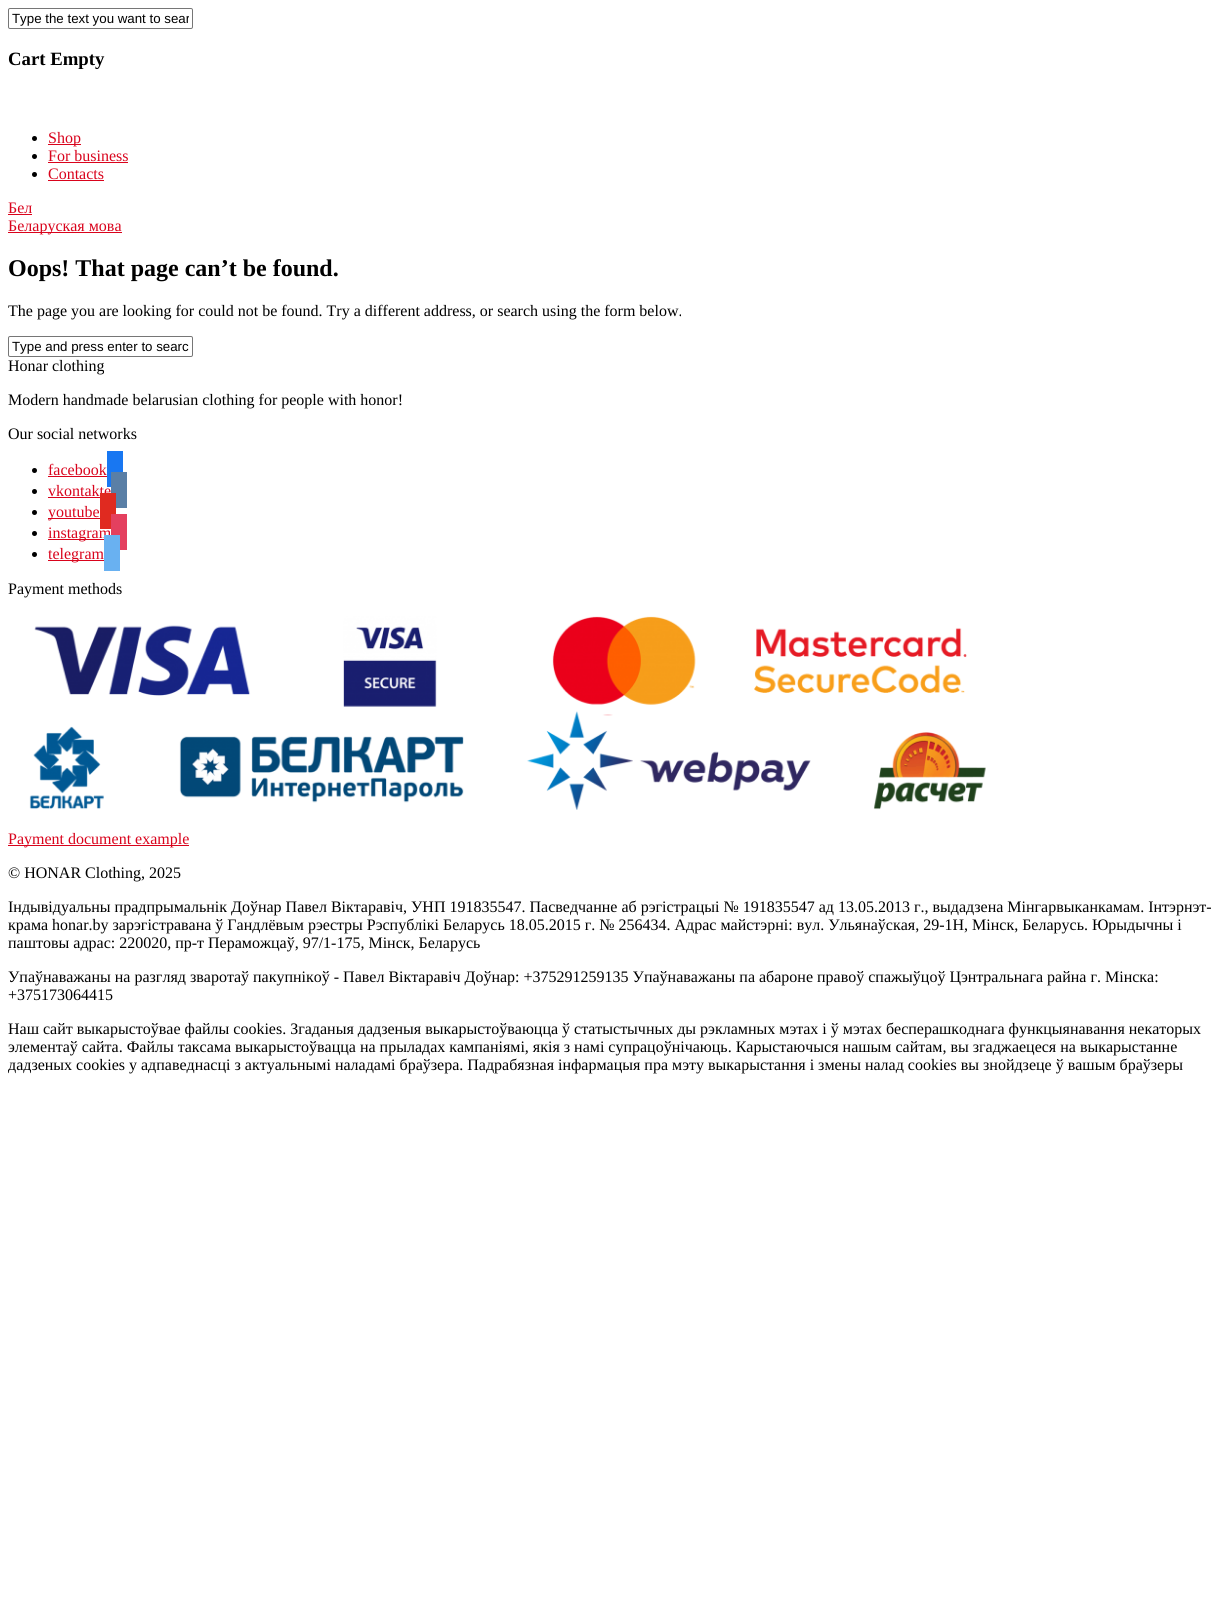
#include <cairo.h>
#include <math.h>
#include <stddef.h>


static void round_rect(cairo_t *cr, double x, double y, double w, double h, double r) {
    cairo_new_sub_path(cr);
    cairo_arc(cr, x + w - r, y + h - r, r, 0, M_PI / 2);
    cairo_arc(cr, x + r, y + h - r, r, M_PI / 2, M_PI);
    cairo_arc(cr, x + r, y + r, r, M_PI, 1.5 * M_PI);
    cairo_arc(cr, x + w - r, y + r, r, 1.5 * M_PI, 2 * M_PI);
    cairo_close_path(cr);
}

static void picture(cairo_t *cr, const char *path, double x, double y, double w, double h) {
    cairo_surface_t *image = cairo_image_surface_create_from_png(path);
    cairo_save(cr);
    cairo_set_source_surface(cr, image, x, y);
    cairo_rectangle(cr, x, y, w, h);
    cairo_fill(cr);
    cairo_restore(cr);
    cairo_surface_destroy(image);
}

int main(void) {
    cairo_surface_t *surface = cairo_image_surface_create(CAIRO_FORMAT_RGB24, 1229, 1611);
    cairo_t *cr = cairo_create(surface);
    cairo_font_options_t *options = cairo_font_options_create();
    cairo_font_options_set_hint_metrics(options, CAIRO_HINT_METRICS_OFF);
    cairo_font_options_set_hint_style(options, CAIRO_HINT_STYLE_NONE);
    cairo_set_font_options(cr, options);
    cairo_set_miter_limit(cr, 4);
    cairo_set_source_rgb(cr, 1, 1, 1);
    cairo_paint(cr);
    round_rect(cr, 8.5, 8.5, 184, 20, 1.5);
    cairo_set_source_rgb(cr, 0.463, 0.463, 0.463);
    cairo_set_line_width(cr, 1);
    cairo_stroke(cr);
    cairo_save(cr);
    cairo_rectangle(cr, 12, 11, 177, 15);
    cairo_clip(cr);
    cairo_select_font_face(cr, "Liberation Sans", CAIRO_FONT_SLANT_NORMAL, CAIRO_FONT_WEIGHT_NORMAL);
    cairo_set_font_size(cr, 13.3);
    cairo_set_source_rgb(cr, 0, 0, 0);
    cairo_move_to(cr, 12, 23);
    cairo_show_text(cr, "Type the text you want to sear");
    cairo_restore(cr);
    cairo_select_font_face(cr, "Liberation Serif", CAIRO_FONT_SLANT_NORMAL, CAIRO_FONT_WEIGHT_BOLD);
    cairo_set_font_size(cr, 18.75);
    cairo_set_source_rgb(cr, 0, 0, 0);
    cairo_move_to(cr, 8, 65);
    cairo_show_text(cr, "Cart Empty");
    cairo_new_path(cr);
    cairo_arc(cr, 34.5, 138.5, 2.5, 0, 2 * M_PI);
    cairo_fill(cr);
    cairo_set_source_rgb(cr, 0.851, 0.012, 0.11);
    cairo_rectangle(cr, 48, 144, 33, 1);
    cairo_fill(cr);
    cairo_select_font_face(cr, "Liberation Serif", CAIRO_FONT_SLANT_NORMAL, CAIRO_FONT_WEIGHT_NORMAL);
    cairo_set_font_size(cr, 16);
    cairo_move_to(cr, 48, 143);
    cairo_show_text(cr, "Shop");
    cairo_set_source_rgb(cr, 0, 0, 0);
    cairo_new_path(cr);
    cairo_arc(cr, 34.5, 156.5, 2.5, 0, 2 * M_PI);
    cairo_fill(cr);
    cairo_set_source_rgb(cr, 0.851, 0.012, 0.11);
    cairo_move_to(cr, 48, 161);
    cairo_show_text(cr, "For business");
    cairo_rectangle(cr, 48, 162, 80, 1);
    cairo_fill(cr);
    cairo_set_source_rgb(cr, 0, 0, 0);
    cairo_arc(cr, 34.5, 174.5, 2.5, 0, 2 * M_PI);
    cairo_fill(cr);
    cairo_set_source_rgb(cr, 0.851, 0.012, 0.11);
    cairo_move_to(cr, 48, 179);
    cairo_show_text(cr, "Contacts");
    cairo_rectangle(cr, 48, 180, 56, 1);
    cairo_fill(cr);
    cairo_move_to(cr, 8, 213);
    cairo_show_text(cr, "Бел");
    cairo_rectangle(cr, 8, 214, 24, 1);
    cairo_fill(cr);
    cairo_rectangle(cr, 8, 232, 114, 1);
    cairo_fill(cr);
    cairo_move_to(cr, 8, 231);
    cairo_show_text(cr, "Беларуская мова");
    cairo_select_font_face(cr, "Liberation Serif", CAIRO_FONT_SLANT_NORMAL, CAIRO_FONT_WEIGHT_BOLD);
    cairo_set_font_size(cr, 24);
    cairo_set_source_rgb(cr, 0, 0, 0);
    cairo_move_to(cr, 8, 276);
    cairo_show_text(cr, "Oops! That page can’t be found.");
    cairo_select_font_face(cr, "Liberation Serif", CAIRO_FONT_SLANT_NORMAL, CAIRO_FONT_WEIGHT_NORMAL);
    cairo_set_font_size(cr, 16);
    cairo_move_to(cr, 8, 316);
    cairo_show_text(cr, "The page you are looking for could not be found. Try a different address, or search using the form below.");
    round_rect(cr, 8.5, 336.5, 184, 20, 1.5);
    cairo_set_source_rgb(cr, 0.463, 0.463, 0.463);
    cairo_stroke(cr);
    cairo_select_font_face(cr, "Liberation Sans", CAIRO_FONT_SLANT_NORMAL, CAIRO_FONT_WEIGHT_NORMAL);
    cairo_set_font_size(cr, 13.3);
    cairo_set_source_rgb(cr, 0, 0, 0);
    cairo_move_to(cr, 12, 351);
    cairo_show_text(cr, "Type and press enter to searc");
    cairo_select_font_face(cr, "Liberation Serif", CAIRO_FONT_SLANT_NORMAL, CAIRO_FONT_WEIGHT_NORMAL);
    cairo_set_font_size(cr, 16);
    cairo_move_to(cr, 8, 371);
    cairo_show_text(cr, "Honar clothing");
    cairo_move_to(cr, 8, 405);
    cairo_show_text(cr, "Modern handmade belarusian clothing for people with honor!");
    cairo_move_to(cr, 8, 439);
    cairo_show_text(cr, "Our social networks");
    cairo_new_path(cr);
    cairo_arc(cr, 34.5, 470.5, 2.5, 0, 2 * M_PI);
    cairo_fill(cr);
    cairo_set_source_rgb(cr, 0.851, 0.012, 0.11);
    cairo_move_to(cr, 48, 475);
    cairo_show_text(cr, "facebook");
    cairo_rectangle(cr, 48, 476, 59, 1);
    cairo_fill(cr);
    cairo_set_source_rgb(cr, 0.094, 0.467, 0.949);
    cairo_rectangle(cr, 107, 451, 16, 36);
    cairo_fill(cr);
    cairo_set_source_rgb(cr, 0, 0, 0);
    cairo_arc(cr, 34.5, 491.5, 2.5, 0, 2 * M_PI);
    cairo_fill(cr);
    cairo_set_source_rgb(cr, 0.851, 0.012, 0.11);
    cairo_move_to(cr, 48, 496);
    cairo_show_text(cr, "vkontakte");
    cairo_rectangle(cr, 48, 497, 52, 1);
    cairo_fill(cr);
    cairo_set_source_rgb(cr, 0.353, 0.498, 0.651);
    cairo_rectangle(cr, 111, 472, 16, 36);
    cairo_fill(cr);
    cairo_set_source_rgb(cr, 0, 0, 0);
    cairo_arc(cr, 34.5, 512.5, 2.5, 0, 2 * M_PI);
    cairo_fill(cr);
    cairo_set_source_rgb(cr, 0.851, 0.012, 0.11);
    cairo_rectangle(cr, 48, 518, 52, 1);
    cairo_fill(cr);
    cairo_move_to(cr, 48, 517);
    cairo_show_text(cr, "youtube");
    cairo_set_source_rgb(cr, 0.878, 0.165, 0.125);
    cairo_rectangle(cr, 100, 493, 16, 36);
    cairo_fill(cr);
    cairo_set_source_rgb(cr, 0, 0, 0);
    cairo_arc(cr, 34.5, 533.5, 2.5, 0, 2 * M_PI);
    cairo_fill(cr);
    cairo_set_source_rgb(cr, 0.851, 0.012, 0.11);
    cairo_rectangle(cr, 48, 539, 63, 1);
    cairo_fill(cr);
    cairo_move_to(cr, 48, 538);
    cairo_show_text(cr, "instagram");
    cairo_set_source_rgb(cr, 0.894, 0.251, 0.373);
    cairo_rectangle(cr, 111, 514, 16, 36);
    cairo_fill(cr);
    cairo_set_source_rgb(cr, 0, 0, 0);
    cairo_arc(cr, 34.5, 554.5, 2.5, 0, 2 * M_PI);
    cairo_fill(cr);
    cairo_set_source_rgb(cr, 0.851, 0.012, 0.11);
    cairo_rectangle(cr, 48, 560, 56, 1);
    cairo_fill(cr);
    cairo_move_to(cr, 48, 559);
    cairo_show_text(cr, "telegram");
    cairo_set_source_rgb(cr, 0.412, 0.694, 0.945);
    cairo_rectangle(cr, 104, 535, 16, 36);
    cairo_fill(cr);
    cairo_set_source_rgb(cr, 0, 0, 0);
    cairo_move_to(cr, 8, 594);
    cairo_show_text(cr, "Payment methods");
    picture(cr, "img1.png", 29, 616, 957, 194);
    cairo_set_source_rgb(cr, 0.851, 0.012, 0.11);
    cairo_rectangle(cr, 8, 845, 181, 1);
    cairo_fill(cr);
    cairo_move_to(cr, 8, 844);
    cairo_show_text(cr, "Payment document example");
    cairo_set_source_rgb(cr, 0, 0, 0);
    cairo_move_to(cr, 8, 878);
    cairo_show_text(cr, "© HONAR Clothing, 2025");
    cairo_move_to(cr, 8, 912);
    cairo_show_text(cr, "Індывідуальны прадпрымальнік Доўнар Павел Віктаравіч, УНП 191835547. Пасведчанне аб рэгістрацыі № 191835547 ад 13.05.2013 г., выдадзена Мінгарвыканкамам. Інтэрнэт-");
    cairo_move_to(cr, 8, 930);
    cairo_show_text(cr, "крама honar.by зарэгістравана ў Гандлёвым рэестры Рэспублікі Беларусь 18.05.2015 г. № 256434. Адрас майстэрні: вул. Ульянаўская, 29-1Н, Мінск, Беларусь. Юрыдычны і");
    cairo_move_to(cr, 8, 948);
    cairo_show_text(cr, "паштовы адрас: 220020, пр-т Пераможцаў, 97/1-175, Мінск, Беларусь");
    cairo_move_to(cr, 8, 982);
    cairo_show_text(cr, "Упаўнаважаны на разгляд зваротаў пакупнікоў - Павел Віктаравіч Доўнар: +375291259135 Упаўнаважаны па абароне правоў спажыўцоў Цэнтральнага райна г. Мінска:");
    cairo_move_to(cr, 8, 1000);
    cairo_show_text(cr, "+375173064415");
    cairo_move_to(cr, 8, 1034);
    cairo_show_text(cr, "Наш сайт выкарыстоўвае файлы cookies. Згаданыя дадзеныя выкарыстоўваюцца ў статыстычных ды рэкламных мэтах і ў мэтах бесперашкоднага функцыянавання некаторых");
    cairo_move_to(cr, 8, 1052);
    cairo_show_text(cr, "элементаў сайта. Файлы таксама выкарыстоўвацца на прыладах кампаніямі, якія з намі супрацоўнічаюць. Карыстаючыся нашым сайтам, вы згаджаецеся на выкарыстанне");
    cairo_move_to(cr, 8, 1070);
    cairo_show_text(cr, "дадзеных cookies у адпаведнасці з актуальнымі наладамі браўзера. Падрабязная інфармацыя пра мэту выкарыстання і змены налад cookies вы знойдзеце ў вашым браўзеры");
    cairo_surface_write_to_png(surface, "page.png");
    cairo_font_options_destroy(options);
    cairo_destroy(cr);
    cairo_surface_destroy(surface);
    return 0;
}
